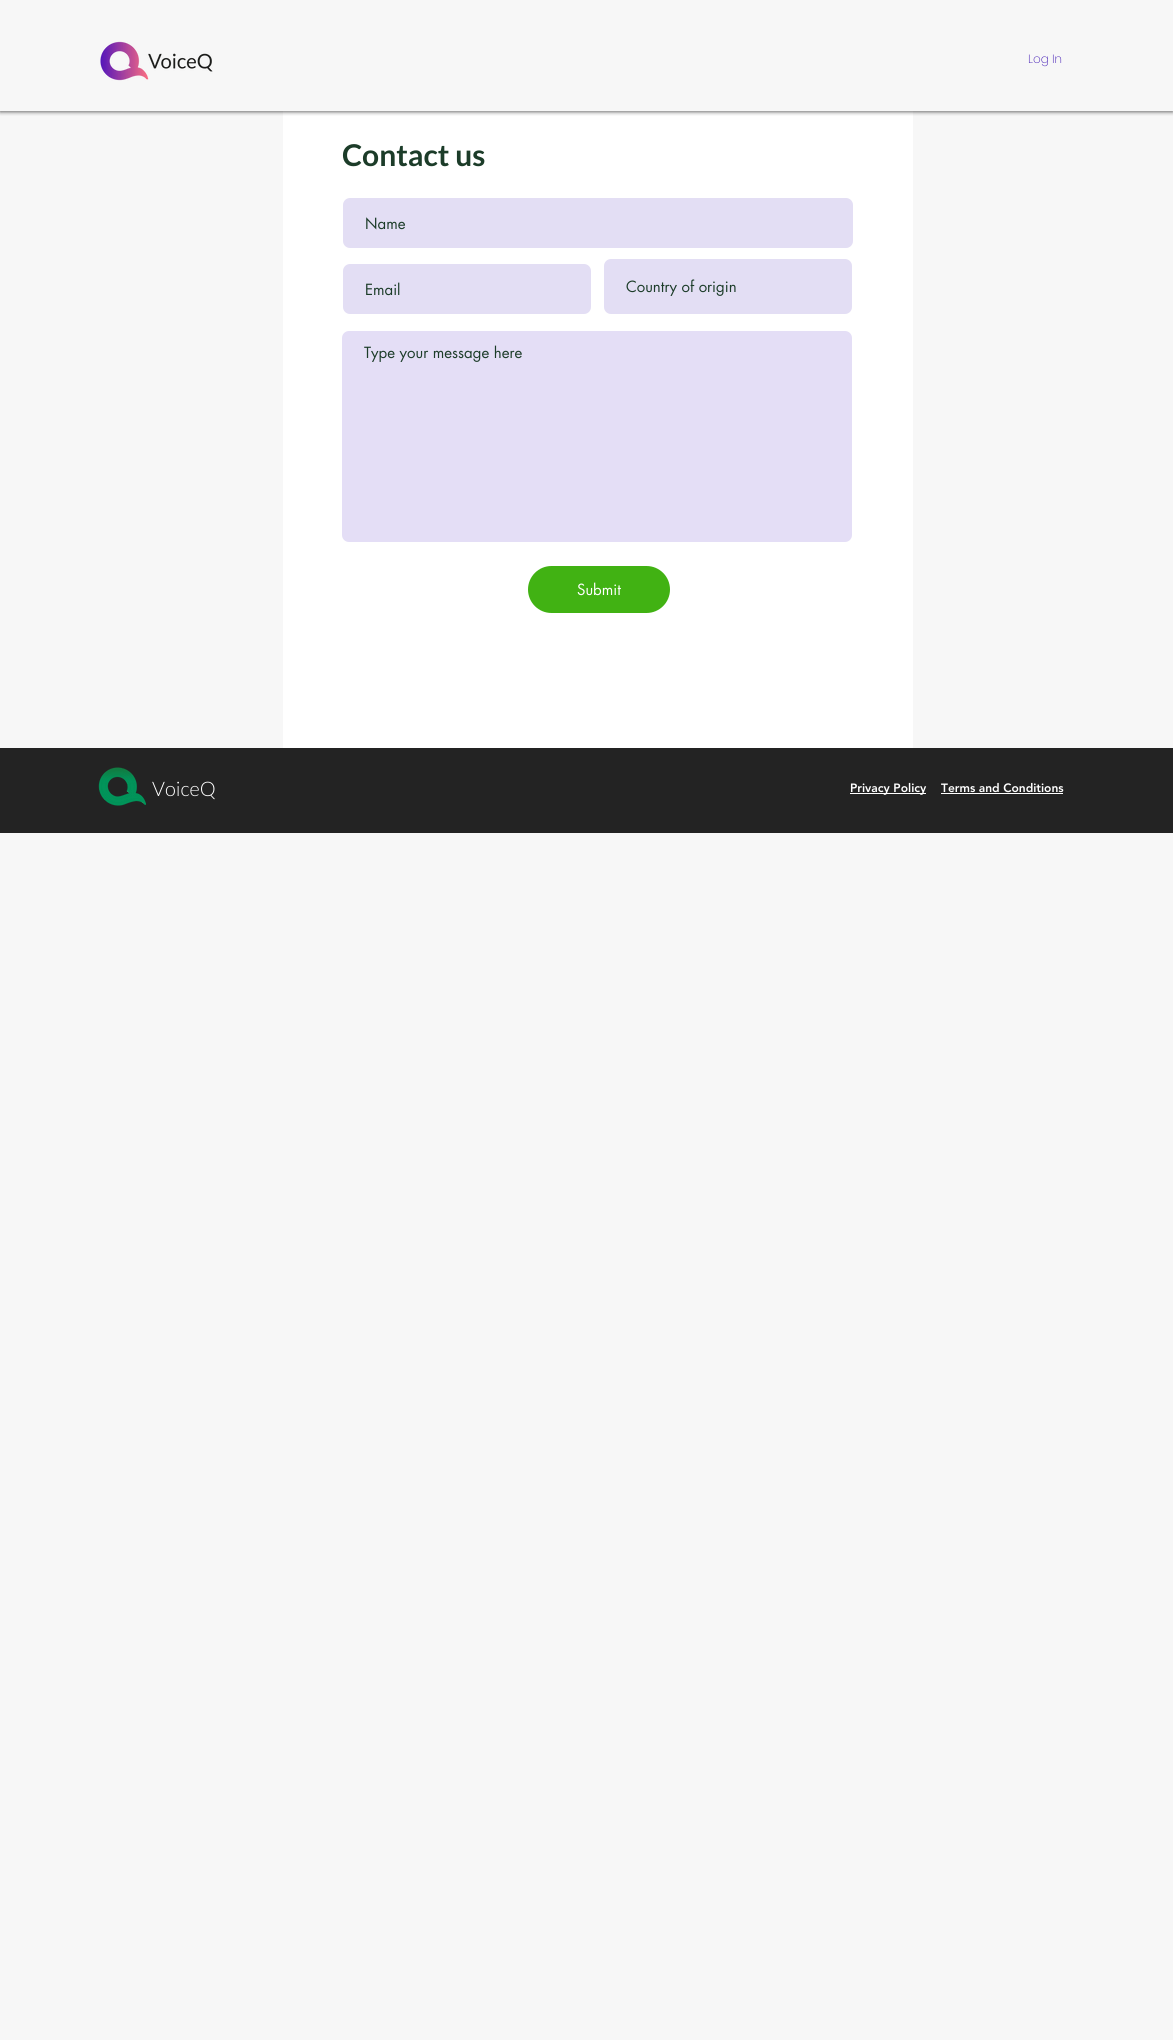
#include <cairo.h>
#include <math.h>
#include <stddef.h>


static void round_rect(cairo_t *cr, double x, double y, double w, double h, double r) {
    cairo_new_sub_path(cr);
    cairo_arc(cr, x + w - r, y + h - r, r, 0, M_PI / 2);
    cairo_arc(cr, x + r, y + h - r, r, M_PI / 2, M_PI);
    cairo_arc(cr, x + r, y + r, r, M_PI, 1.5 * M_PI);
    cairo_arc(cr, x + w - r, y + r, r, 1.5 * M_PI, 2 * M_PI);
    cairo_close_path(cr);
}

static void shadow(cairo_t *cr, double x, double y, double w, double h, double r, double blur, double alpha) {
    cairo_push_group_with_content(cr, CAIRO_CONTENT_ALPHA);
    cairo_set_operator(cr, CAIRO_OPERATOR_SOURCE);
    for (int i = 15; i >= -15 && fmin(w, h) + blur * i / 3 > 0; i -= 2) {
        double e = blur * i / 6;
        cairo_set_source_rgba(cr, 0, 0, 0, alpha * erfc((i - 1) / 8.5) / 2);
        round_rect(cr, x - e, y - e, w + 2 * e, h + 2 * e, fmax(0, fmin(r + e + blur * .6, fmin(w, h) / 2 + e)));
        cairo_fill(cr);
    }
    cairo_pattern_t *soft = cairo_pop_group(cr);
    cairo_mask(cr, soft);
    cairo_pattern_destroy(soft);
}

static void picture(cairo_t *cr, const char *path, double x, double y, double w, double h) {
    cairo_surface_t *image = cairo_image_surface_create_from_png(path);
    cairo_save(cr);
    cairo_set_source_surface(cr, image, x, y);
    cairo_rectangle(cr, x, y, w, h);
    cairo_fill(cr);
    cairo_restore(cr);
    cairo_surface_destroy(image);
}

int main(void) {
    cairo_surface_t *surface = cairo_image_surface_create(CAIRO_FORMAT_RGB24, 1173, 2040);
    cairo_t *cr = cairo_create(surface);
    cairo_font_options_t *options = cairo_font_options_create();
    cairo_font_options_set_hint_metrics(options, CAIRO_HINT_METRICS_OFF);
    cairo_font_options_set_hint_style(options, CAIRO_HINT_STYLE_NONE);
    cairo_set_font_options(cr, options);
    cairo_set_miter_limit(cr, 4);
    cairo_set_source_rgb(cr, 0.965, 0.965, 0.965);
    cairo_paint(cr);
    cairo_set_source_rgb(cr, 1, 1, 1);
    cairo_rectangle(cr, 283, 111, 630, 637);
    cairo_fill(cr);
    cairo_save(cr);
    cairo_rectangle(cr, 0, 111, 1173, 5);
    cairo_clip(cr);
    cairo_set_source_rgb(cr, 0, 0, 0);
    shadow(cr, 0, 1, 1173, 111, 0, 2, 0.6);
    cairo_restore(cr);
    picture(cr, "img1.png", 100, 41, 113, 40);
    cairo_select_font_face(cr, "Poppins ExtraLight", CAIRO_FONT_SLANT_NORMAL, CAIRO_FONT_WEIGHT_NORMAL);
    cairo_set_font_size(cr, 12);
    cairo_set_source_rgb(cr, 0.278, 0.125, 0.718);
    cairo_move_to(cr, 1028, 63);
    cairo_show_text(cr, "Log In");
    cairo_select_font_face(cr, "Lato", CAIRO_FONT_SLANT_NORMAL, CAIRO_FONT_WEIGHT_BOLD);
    cairo_set_font_size(cr, 30);
    cairo_set_source_rgb(cr, 0.11, 0.235, 0.161);
    cairo_move_to(cr, 342, 166);
    cairo_show_text(cr, "Contact us");
    cairo_set_source_rgb(cr, 0.89, 0.871, 0.957);
    round_rect(cr, 343, 198, 510, 50, 7);
    cairo_fill(cr);
    cairo_select_font_face(cr, "futura", CAIRO_FONT_SLANT_NORMAL, CAIRO_FONT_WEIGHT_NORMAL);
    cairo_set_font_size(cr, 15);
    cairo_set_source_rgb(cr, 0.11, 0.235, 0.161);
    cairo_move_to(cr, 365, 229);
    cairo_show_text(cr, "Name");
    cairo_set_source_rgb(cr, 0.89, 0.871, 0.957);
    round_rect(cr, 343, 264, 248, 50, 7);
    cairo_fill(cr);
    cairo_set_source_rgb(cr, 0.11, 0.235, 0.161);
    cairo_move_to(cr, 365, 295);
    cairo_show_text(cr, "Email");
    cairo_set_source_rgb(cr, 0.89, 0.871, 0.957);
    round_rect(cr, 604, 259, 248, 55, 7);
    cairo_fill(cr);
    cairo_set_source_rgb(cr, 0.11, 0.235, 0.161);
    cairo_move_to(cr, 626, 292);
    cairo_show_text(cr, "Country of origin");
    cairo_set_source_rgb(cr, 0.894, 0.871, 0.961);
    round_rect(cr, 342, 331, 510, 211, 7);
    cairo_fill(cr);
    cairo_set_source_rgb(cr, 0.11, 0.235, 0.161);
    cairo_move_to(cr, 364, 358);
    cairo_show_text(cr, "Type your message here");
    cairo_set_source_rgb(cr, 0.255, 0.698, 0.078);
    round_rect(cr, 528, 566, 142, 47, 23.5);
    cairo_fill(cr);
    cairo_set_source_rgb(cr, 1, 1, 1);
    cairo_move_to(cr, 577, 595);
    cairo_show_text(cr, "Submit");
    cairo_set_source_rgb(cr, 0.137, 0.137, 0.137);
    cairo_rectangle(cr, 0, 748, 1173, 85);
    cairo_fill(cr);
    picture(cr, "img2.png", 98, 767, 48, 39);
    cairo_select_font_face(cr, "Lato Light", CAIRO_FONT_SLANT_NORMAL, CAIRO_FONT_WEIGHT_NORMAL);
    cairo_set_font_size(cr, 20);
    cairo_set_source_rgb(cr, 1, 1, 1);
    cairo_move_to(cr, 152, 796);
    cairo_show_text(cr, "VoiceQ");
    cairo_rectangle(cr, 850, 793, 76, 1);
    cairo_fill(cr);
    cairo_select_font_face(cr, "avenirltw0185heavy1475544 Black", CAIRO_FONT_SLANT_NORMAL, CAIRO_FONT_WEIGHT_NORMAL);
    cairo_set_font_size(cr, 12);
    cairo_move_to(cr, 850, 792);
    cairo_show_text(cr, "Privacy Policy");
    cairo_move_to(cr, 941, 792);
    cairo_show_text(cr, "Terms and Conditions");
    cairo_rectangle(cr, 941, 793, 122, 1);
    cairo_fill(cr);
    cairo_surface_write_to_png(surface, "page.png");
    cairo_font_options_destroy(options);
    cairo_destroy(cr);
    cairo_surface_destroy(surface);
    return 0;
}
